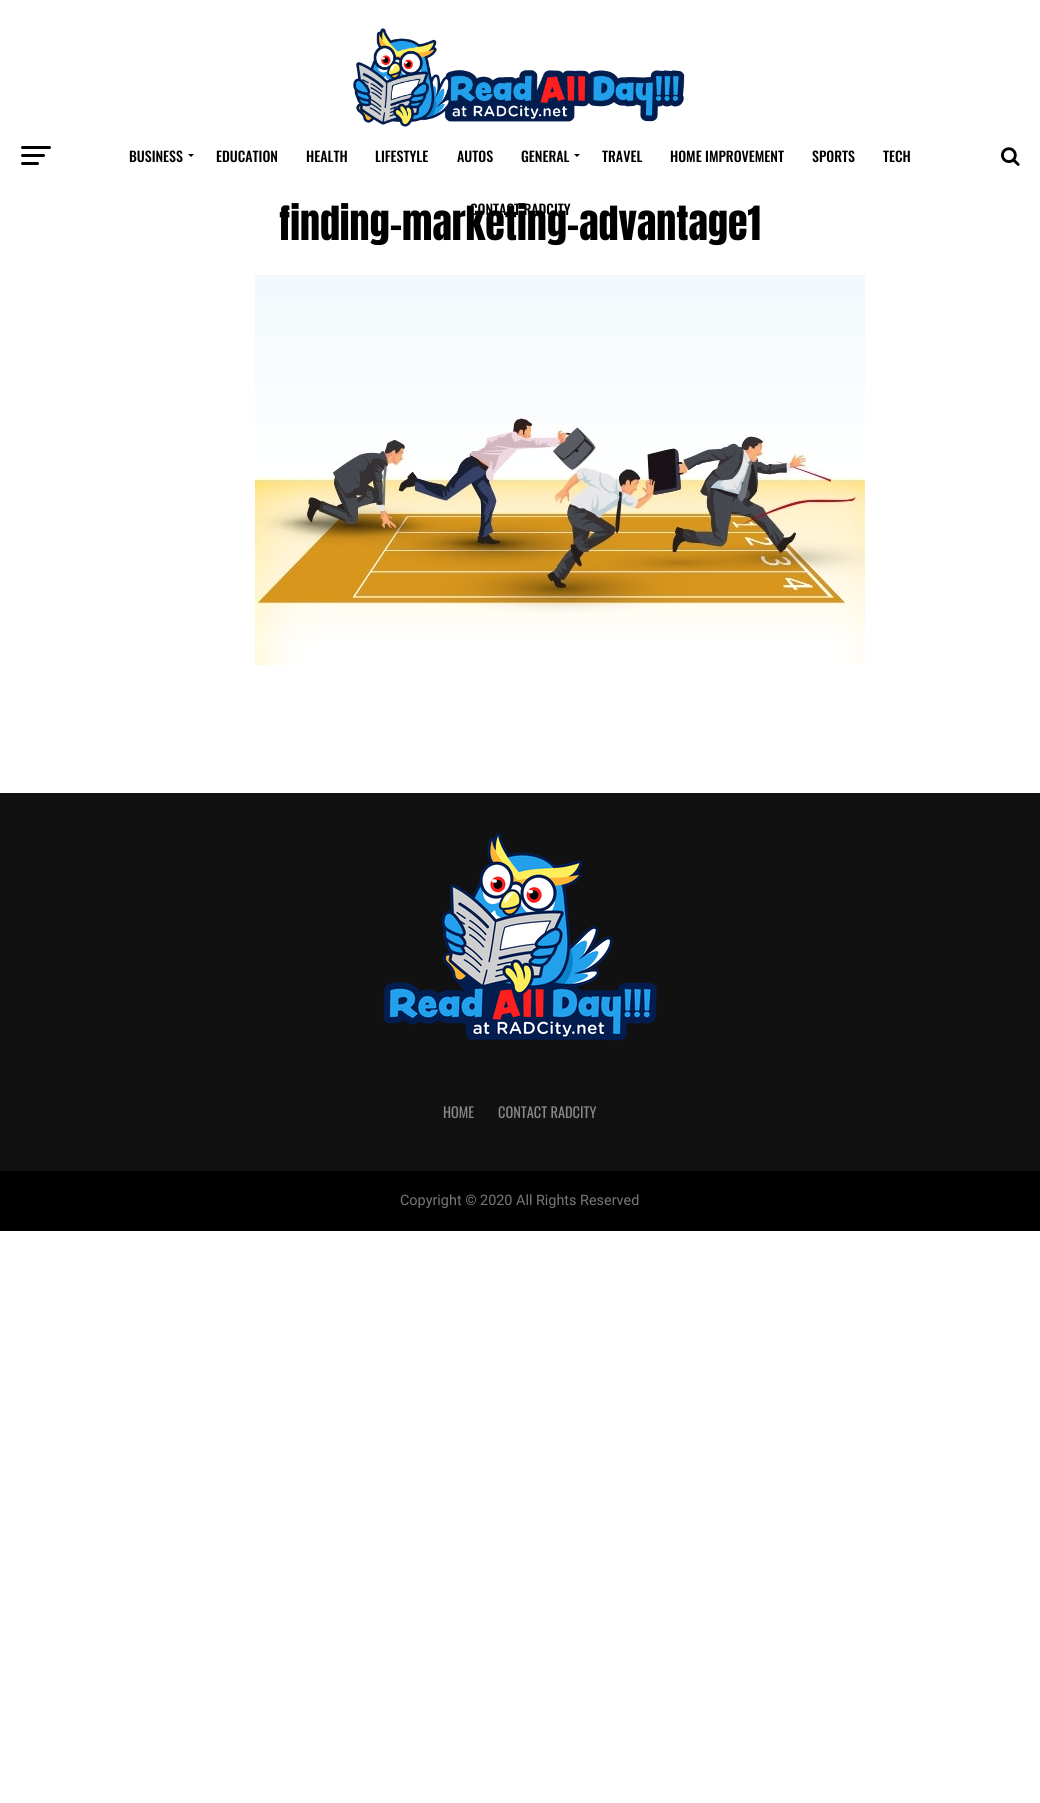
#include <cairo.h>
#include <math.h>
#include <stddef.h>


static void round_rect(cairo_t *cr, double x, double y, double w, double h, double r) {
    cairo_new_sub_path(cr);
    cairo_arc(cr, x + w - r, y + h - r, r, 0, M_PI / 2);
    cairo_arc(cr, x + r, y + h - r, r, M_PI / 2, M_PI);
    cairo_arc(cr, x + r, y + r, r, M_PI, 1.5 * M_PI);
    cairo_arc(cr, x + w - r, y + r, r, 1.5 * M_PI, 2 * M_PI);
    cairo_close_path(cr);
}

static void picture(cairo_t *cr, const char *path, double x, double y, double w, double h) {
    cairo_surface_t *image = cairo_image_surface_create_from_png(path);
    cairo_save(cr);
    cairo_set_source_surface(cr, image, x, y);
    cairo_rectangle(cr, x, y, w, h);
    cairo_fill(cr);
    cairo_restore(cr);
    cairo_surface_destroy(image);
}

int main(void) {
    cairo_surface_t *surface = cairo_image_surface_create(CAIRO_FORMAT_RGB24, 1040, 1803);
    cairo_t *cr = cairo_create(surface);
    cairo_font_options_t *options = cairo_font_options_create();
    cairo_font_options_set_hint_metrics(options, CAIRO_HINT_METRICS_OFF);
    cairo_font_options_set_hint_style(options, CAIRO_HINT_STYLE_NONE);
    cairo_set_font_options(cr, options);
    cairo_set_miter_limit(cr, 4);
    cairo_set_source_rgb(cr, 1, 1, 1);
    cairo_paint(cr);
    picture(cr, "img1.png", 353, 28, 332, 99);
    cairo_set_source_rgb(cr, 0, 0, 0);
    round_rect(cr, 21, 146, 30, 3, 1.5);
    cairo_fill(cr);
    round_rect(cr, 21, 154, 24, 3, 1.5);
    cairo_fill(cr);
    round_rect(cr, 21, 162, 18, 3, 1.5);
    cairo_fill(cr);
    cairo_select_font_face(cr, "Oswald Medium", CAIRO_FONT_SLANT_NORMAL, CAIRO_FONT_WEIGHT_NORMAL);
    cairo_set_font_size(cr, 14);
    cairo_move_to(cr, 129, 162);
    cairo_show_text(cr, "BUSINESS");
    cairo_new_path(cr);
    cairo_move_to(cr, 188, 154);
    cairo_line_to(cr, 194, 154);
    cairo_line_to(cr, 191, 157);
    cairo_close_path(cr);
    cairo_fill(cr);
    cairo_move_to(cr, 216, 162);
    cairo_show_text(cr, "EDUCATION");
    cairo_move_to(cr, 306, 162);
    cairo_show_text(cr, "HEALTH");
    cairo_move_to(cr, 375, 162);
    cairo_show_text(cr, "LIFESTYLE");
    cairo_move_to(cr, 457, 162);
    cairo_show_text(cr, "AUTOS");
    cairo_move_to(cr, 521, 162);
    cairo_show_text(cr, "GENERAL");
    cairo_new_path(cr);
    cairo_move_to(cr, 574, 154);
    cairo_line_to(cr, 580, 154);
    cairo_line_to(cr, 577, 157);
    cairo_close_path(cr);
    cairo_fill(cr);
    cairo_move_to(cr, 602, 162);
    cairo_show_text(cr, "TRAVEL");
    cairo_move_to(cr, 670, 162);
    cairo_show_text(cr, "HOME IMPROVEMENT");
    cairo_move_to(cr, 812, 162);
    cairo_show_text(cr, "SPORTS");
    cairo_move_to(cr, 883, 162);
    cairo_show_text(cr, "TECH");
    cairo_select_font_face(cr, "Anton", CAIRO_FONT_SLANT_NORMAL, CAIRO_FONT_WEIGHT_NORMAL);
    cairo_set_font_size(cr, 40);
    cairo_move_to(cr, 279, 240);
    cairo_show_text(cr, "finding-marketing-advantage1");
    cairo_select_font_face(cr, "Oswald Medium", CAIRO_FONT_SLANT_NORMAL, CAIRO_FONT_WEIGHT_NORMAL);
    cairo_set_font_size(cr, 14);
    cairo_move_to(cr, 470, 215);
    cairo_show_text(cr, "CONTACT RADCITY");
    picture(cr, "img2.png", 1001, 147, 19, 19);
    picture(cr, "img3.png", 255, 275, 610, 390);
    cairo_set_source_rgb(cr, 0.067, 0.067, 0.067);
    cairo_rectangle(cr, 0, 793, 1040, 378);
    cairo_fill(cr);
    picture(cr, "img4.png", 383, 833, 274, 208);
    cairo_select_font_face(cr, "Oswald", CAIRO_FONT_SLANT_NORMAL, CAIRO_FONT_WEIGHT_NORMAL);
    cairo_set_font_size(cr, 14.4);
    cairo_set_source_rgb(cr, 0.533, 0.533, 0.533);
    cairo_move_to(cr, 443, 1118);
    cairo_show_text(cr, "HOME");
    cairo_move_to(cr, 498, 1118);
    cairo_show_text(cr, "CONTACT RADCITY");
    cairo_set_source_rgb(cr, 0, 0, 0);
    cairo_rectangle(cr, 0, 1171, 1040, 60);
    cairo_fill(cr);
    cairo_select_font_face(cr, "Roboto", CAIRO_FONT_SLANT_NORMAL, CAIRO_FONT_WEIGHT_NORMAL);
    cairo_set_source_rgb(cr, 0.467, 0.467, 0.467);
    cairo_move_to(cr, 400, 1205);
    cairo_show_text(cr, "Copyright © 2020 All Rights Reserved");
    cairo_surface_write_to_png(surface, "page.png");
    cairo_font_options_destroy(options);
    cairo_destroy(cr);
    cairo_surface_destroy(surface);
    return 0;
}
